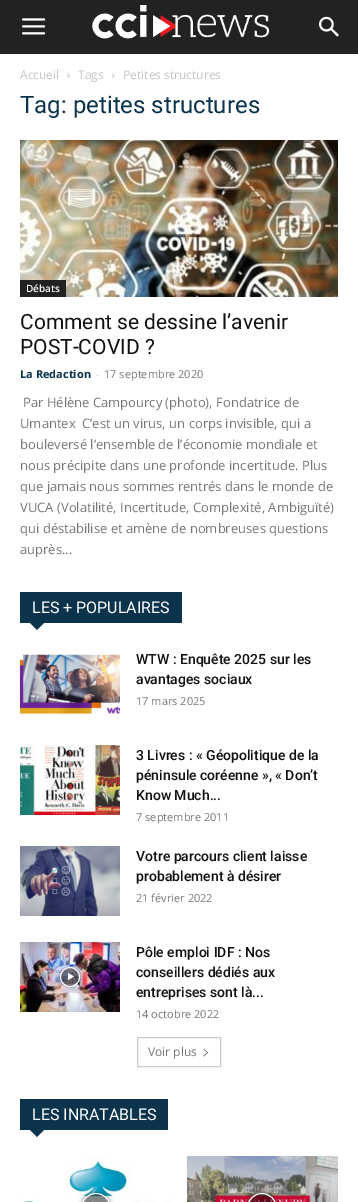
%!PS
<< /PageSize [358 1202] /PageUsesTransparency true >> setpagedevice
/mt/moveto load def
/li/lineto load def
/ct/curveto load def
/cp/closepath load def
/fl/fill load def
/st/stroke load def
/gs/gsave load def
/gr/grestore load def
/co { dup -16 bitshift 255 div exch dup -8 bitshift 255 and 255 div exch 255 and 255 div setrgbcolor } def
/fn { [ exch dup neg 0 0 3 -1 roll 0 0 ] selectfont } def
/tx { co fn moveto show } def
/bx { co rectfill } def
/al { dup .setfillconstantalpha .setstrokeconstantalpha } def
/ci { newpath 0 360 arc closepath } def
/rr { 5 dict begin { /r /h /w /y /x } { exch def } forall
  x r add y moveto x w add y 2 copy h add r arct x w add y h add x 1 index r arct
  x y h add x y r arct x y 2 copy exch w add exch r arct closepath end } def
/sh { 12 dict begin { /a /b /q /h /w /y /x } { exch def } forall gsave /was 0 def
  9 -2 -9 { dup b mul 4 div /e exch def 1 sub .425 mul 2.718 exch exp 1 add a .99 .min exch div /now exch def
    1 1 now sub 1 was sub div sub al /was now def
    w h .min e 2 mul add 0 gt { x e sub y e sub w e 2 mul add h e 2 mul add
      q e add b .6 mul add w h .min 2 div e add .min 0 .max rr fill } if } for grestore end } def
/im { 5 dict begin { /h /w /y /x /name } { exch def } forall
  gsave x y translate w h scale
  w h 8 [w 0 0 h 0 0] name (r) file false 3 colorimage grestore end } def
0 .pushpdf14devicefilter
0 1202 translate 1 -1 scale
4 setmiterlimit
0 0 358 1202 16#FFFFFF bx
0 0 358 54 16#222222 bx
(media/1.raw) 22 18 24 17 im
(media/2.raw) 92 5 177 34 im
(media/3.raw) 319 16 20 21 im
(media/4.raw) 67 73 3 5 im
(media/4.raw) 112 73 3 5 im
(media/5.raw) 20 140 318 157 im
20 280 46 17 16#222222 bx
20 592 162 31 16#0B334C bx
30 623 mt 44 623 li 37 630 li cp fl
(media/6.raw) 20 654 100 60 im
(media/7.raw) 20 745 100 70 im
(media/8.raw) 20 846 100 70 im
(media/9.raw) 20 942 100 70 im
gs
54 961 mt 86 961 li 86 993 li 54 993 li cp 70 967 mt 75.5 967 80 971.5 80 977 ct 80 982.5 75.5 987 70 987 ct 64.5 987 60 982.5 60 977 ct 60 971.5 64.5 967 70 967 ct cp eoclip newpath
16#000000 co
60 967 20 20 10 1.5 .4 sh
gr
0.48 al
16#000000 co
70 977 9.5 ci fl
1 al
16#FFFFFF co
70 977 9.5 ci st
68 973 mt 68 980 li 74 976.5 li cp fl
16#C9C9C9 co
137.5 1037.5 83 29 rectstroke
(media/10.raw) 203 1048 6 9 im
20 1099 148 31 16#0B334C bx
30 1130 mt 44 1130 li 37 1137 li cp fl
(media/11.raw) 20 1156 152 46 im
gs
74 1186 mt 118 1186 li 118 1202 li 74 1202 li cp 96 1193 mt 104.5 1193 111 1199.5 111 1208 ct 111 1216.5 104.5 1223 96 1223 ct 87.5 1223 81 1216.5 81 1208 ct 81 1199.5 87.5 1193 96 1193 ct cp eoclip newpath
16#000000 co
81 1193 30 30 15 2 .4 sh
gr
0.48 al
16#000000 co
81.5 1193.5 29 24 14.5 rr fl
1 al
16#FFFFFF co
81.5 1193.5 29 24 14.5 rr st
92.5 1201.5 mt 92.5 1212 li 101.5 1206.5 li cp fl
(media/12.raw) 187 1156 151 46 im
gs
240 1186 mt 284 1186 li 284 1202 li 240 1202 li cp 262 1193 mt 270.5 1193 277 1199.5 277 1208 ct 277 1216.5 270.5 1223 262 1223 ct 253.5 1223 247 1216.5 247 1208 ct 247 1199.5 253.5 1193 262 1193 ct cp eoclip newpath
16#000000 co
247 1193 30 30 15 2 .4 sh
gr
0.48 al
16#000000 co
247.5 1193.5 29 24 14.5 rr fl
1 al
16#FFFFFF co
247.5 1193.5 29 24 14.5 rr st
258.5 1201.5 mt 258.5 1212 li 267.5 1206.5 li cp fl
(Accueil) 20 79 /OpenSans-Regular 12 16#C3C3C3 tx
(Tags) 78 79 /OpenSans-Regular 12 16#C3C3C3 tx
(Petites structures) 123 79 /OpenSans-Regular 12 16#C3C3C3 tx
(Tag: petites structures) 20 113 /Roboto-Regular 24 16#0B334C tx
(Débats) 26 292 /OpenSans-SemiBold 10 16#FFFFFF tx
(Comment se dessine l’avenir) 20 329 /Roboto-Regular 21 16#111111 tx
(POST-COVID ?) 20 354 /Roboto-Regular 21 16#111111 tx
(La Redaction) 20 378 /OpenSans-Bold 11 16#0B334C tx
(-) 96 378 /OpenSans-Regular 11 16#CCCCCC tx
(17 septembre 2020) 104 378 /OpenSans-Regular 11 16#767676 tx
(Par Hélène Campourcy \(photo\), Fondatrice de) 23 407 /OpenSans-Regular 13 16#767676 tx
(Umantex) 20 428 /OpenSans-Regular 13 16#767676 tx
(C’est un virus, un corps invisible, qui a) 82 428 /OpenSans-Regular 13 16#767676 tx
(bouleversé l’ensemble de l’économie mondiale et) 20 449 /OpenSans-Regular 13 16#767676 tx
(nous précipite dans une profonde incertitude. Plus) 20 470 /OpenSans-Regular 13 16#767676 tx
(que jamais nous sommes rentrés dans le monde de) 20 491 /OpenSans-Regular 13 16#767676 tx
(VUCA \(Volatilité, Incertitude, Complexité, Ambiguïté\)) 20 512 /OpenSans-Regular 13 16#767676 tx
(qui déstabilise et amène de nombreuses questions) 20 533 /OpenSans-Regular 13 16#767676 tx
(auprès...) 20 554 /OpenSans-Regular 13 16#767676 tx
(LES + POPULAIRES) 32 613 /Roboto-Regular 16 16#FFFFFF tx
(WTW : Enquête 2025 sur les) 136 664 /Roboto-Medium 14 16#111111 tx
(avantages sociaux) 136 684 /Roboto-Medium 14 16#111111 tx
(17 mars 2025) 136 705 /OpenSans-Regular 11 16#767676 tx
(3 Livres : « Géopolitique de la) 136 760 /Roboto-Medium 14 16#111111 tx
(péninsule coréenne », « Don’t) 136 780 /Roboto-Medium 14 16#111111 tx
(Know Much...) 136 800 /Roboto-Medium 14 16#111111 tx
(7 septembre 2011) 136 821 /OpenSans-Regular 11 16#767676 tx
(Votre parcours client laisse) 136 861 /Roboto-Medium 14 16#111111 tx
(probablement à désirer) 136 881 /Roboto-Medium 14 16#111111 tx
(21 février 2022) 136 902 /OpenSans-Regular 11 16#767676 tx
(Pôle emploi IDF : Nos) 136 957 /Roboto-Medium 14 16#111111 tx
(conseillers dédiés aux) 136 977 /Roboto-Medium 14 16#111111 tx
(entreprises sont là...) 136 997 /Roboto-Medium 14 16#111111 tx
(14 octobre 2022) 136 1018 /OpenSans-Regular 11 16#767676 tx
(Voir plus) 148 1056 /OpenSans-Regular 12 16#767676 tx
(LES INRATABLES) 32 1120 /Roboto-Regular 16 16#FFFFFF tx
.poppdf14devicefilter showpage
